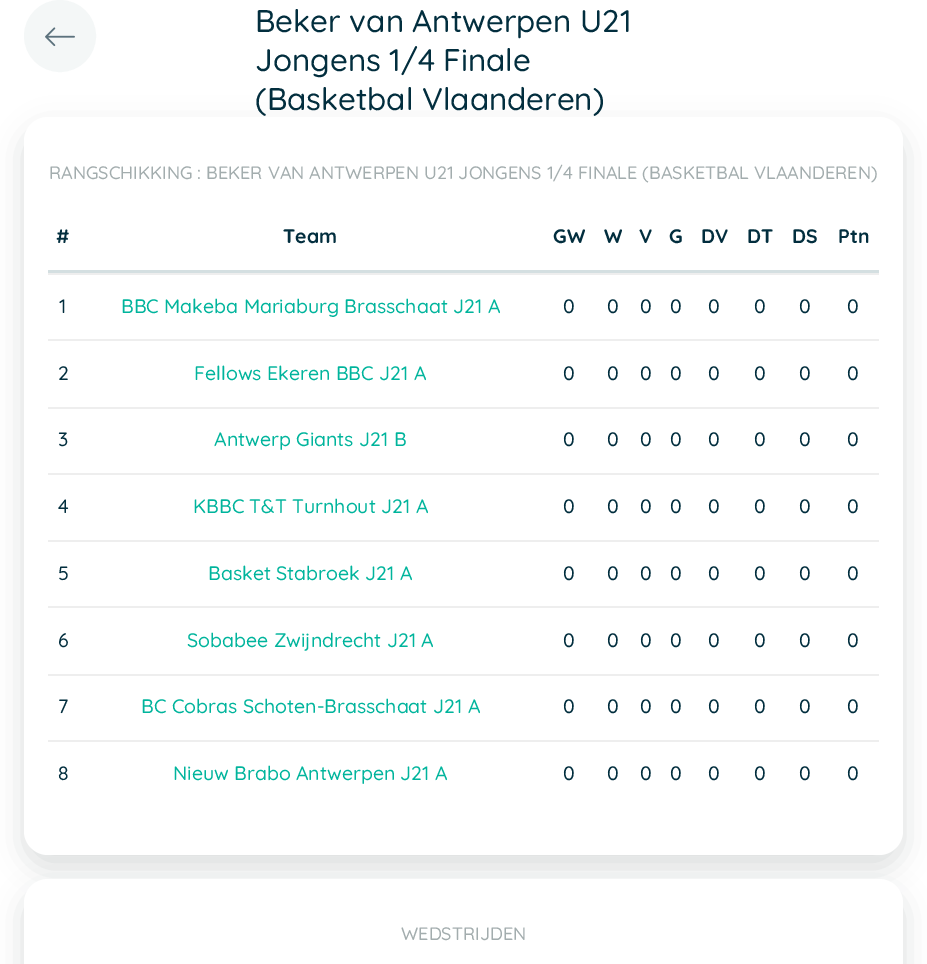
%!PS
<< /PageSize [927 964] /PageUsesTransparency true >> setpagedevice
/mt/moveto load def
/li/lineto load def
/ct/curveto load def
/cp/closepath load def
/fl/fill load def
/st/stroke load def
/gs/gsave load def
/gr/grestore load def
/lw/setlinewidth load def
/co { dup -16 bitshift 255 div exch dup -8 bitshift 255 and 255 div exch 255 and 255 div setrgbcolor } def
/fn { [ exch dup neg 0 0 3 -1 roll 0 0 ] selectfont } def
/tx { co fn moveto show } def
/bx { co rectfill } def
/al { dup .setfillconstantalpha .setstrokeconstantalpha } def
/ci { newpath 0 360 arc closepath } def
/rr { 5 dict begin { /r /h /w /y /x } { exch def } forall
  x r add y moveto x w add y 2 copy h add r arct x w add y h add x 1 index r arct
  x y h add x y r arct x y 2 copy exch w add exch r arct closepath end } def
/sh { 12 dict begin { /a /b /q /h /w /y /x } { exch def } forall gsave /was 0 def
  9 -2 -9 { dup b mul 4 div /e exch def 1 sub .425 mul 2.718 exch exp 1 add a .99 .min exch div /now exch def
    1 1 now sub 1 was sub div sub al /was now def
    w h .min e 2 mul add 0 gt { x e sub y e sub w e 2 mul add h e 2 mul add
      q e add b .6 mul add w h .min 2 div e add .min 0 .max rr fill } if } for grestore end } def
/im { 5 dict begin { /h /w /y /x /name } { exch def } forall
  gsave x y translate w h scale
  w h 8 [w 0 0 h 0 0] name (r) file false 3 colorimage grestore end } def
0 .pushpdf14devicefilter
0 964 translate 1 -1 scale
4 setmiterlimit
0 0 927 964 16#FFFFFF bx
16#F4F7F7 co
60 36 35 ci gs fl gr
2 lw
st
(media/1.raw) 45 27 30 20 im
16#475C5D co
24 129 879 738 24 15 .2 sh
16#FFFFFF co
24 117 879 738 24 rr fl
48 270 831 3 16#D4DFE1 bx
48 273 831 2 16#EEEEEE bx
48 339 831 2 16#EEEEEE bx
48 407 831 2 16#EEEEEE bx
48 473 831 2 16#EEEEEE bx
48 540 831 2 16#EEEEEE bx
48 606 831 2 16#EEEEEE bx
48 674 831 2 16#EEEEEE bx
48 740 831 2 16#EEEEEE bx
16#475C5D co
24 891 879 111 24 15 .2 sh
16#FFFFFF co
48 879 mt 879 879 li 892.5 879 903 889.5 903 903 ct 903 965 li 24 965 li 24 903 li 24 889.5 34.5 879 48 879 ct cp fl
(Beker van Antwerpen U21) 255 32 /Quicksand-Medium 31.25 16#022E3E tx
(Jongens 1/4 Finale) 255 71 /Quicksand-Medium 31.25 16#022E3E tx
(\(Basketbal Vlaanderen\)) 255 110 /Quicksand-Medium 31.25 16#022E3E tx
(RANGSCHIKKING : BEKER VAN ANTWERPEN U21 JONGENS 1/4 FINALE \(BASKETBAL VLAANDEREN\)) 49 179 /Quicksand-Medium 18 16#A3ADAE tx
(#) 56 243 /Quicksand-Bold 19.5 16#022E3E tx
(Team) 283 243 /Quicksand-Bold 19.5 16#022E3E tx
(GW) 553 243 /Quicksand-Bold 19.5 16#022E3E tx
(W) 604 243 /Quicksand-Bold 19.5 16#022E3E tx
(V) 639 243 /Quicksand-Bold 19.5 16#022E3E tx
(G) 669 243 /Quicksand-Bold 19.5 16#022E3E tx
(DV) 701 243 /Quicksand-Bold 19.5 16#022E3E tx
(DT) 747 243 /Quicksand-Bold 19.5 16#022E3E tx
(DS) 792 243 /Quicksand-Bold 19.5 16#022E3E tx
(Ptn) 838 243 /Quicksand-Bold 19.5 16#022E3E tx
(1) 59 313 /Quicksand-Medium 19.5 16#022E3E tx
(BBC Makeba Mariaburg Brasschaat J21 A) 121 313 /Quicksand-Medium 19.5 16#00B49C tx
(0) 563 313 /Quicksand-Medium 19.5 16#022E3E tx
(0) 607 313 /Quicksand-Medium 19.5 16#022E3E tx
(0) 640 313 /Quicksand-Medium 19.5 16#022E3E tx
(0) 670 313 /Quicksand-Medium 19.5 16#022E3E tx
(0) 708 313 /Quicksand-Medium 19.5 16#022E3E tx
(0) 754 313 /Quicksand-Medium 19.5 16#022E3E tx
(0) 799 313 /Quicksand-Medium 19.5 16#022E3E tx
(0) 847 313 /Quicksand-Medium 19.5 16#022E3E tx
(2) 58 380 /Quicksand-Medium 19.5 16#022E3E tx
(Fellows Ekeren BBC J21 A) 194 380 /Quicksand-Medium 19.5 16#00B49C tx
(0) 563 380 /Quicksand-Medium 19.5 16#022E3E tx
(0) 607 380 /Quicksand-Medium 19.5 16#022E3E tx
(0) 640 380 /Quicksand-Medium 19.5 16#022E3E tx
(0) 670 380 /Quicksand-Medium 19.5 16#022E3E tx
(0) 708 380 /Quicksand-Medium 19.5 16#022E3E tx
(0) 754 380 /Quicksand-Medium 19.5 16#022E3E tx
(0) 799 380 /Quicksand-Medium 19.5 16#022E3E tx
(0) 847 380 /Quicksand-Medium 19.5 16#022E3E tx
(3) 58 446 /Quicksand-Medium 19.5 16#022E3E tx
(Antwerp Giants J21 B) 214 446 /Quicksand-Medium 19.5 16#00B49C tx
(0) 563 446 /Quicksand-Medium 19.5 16#022E3E tx
(0) 607 446 /Quicksand-Medium 19.5 16#022E3E tx
(0) 640 446 /Quicksand-Medium 19.5 16#022E3E tx
(0) 670 446 /Quicksand-Medium 19.5 16#022E3E tx
(0) 708 446 /Quicksand-Medium 19.5 16#022E3E tx
(0) 754 446 /Quicksand-Medium 19.5 16#022E3E tx
(0) 799 446 /Quicksand-Medium 19.5 16#022E3E tx
(0) 847 446 /Quicksand-Medium 19.5 16#022E3E tx
(4) 58 513 /Quicksand-Medium 19.5 16#022E3E tx
(KBBC T&T Turnhout J21 A) 193 513 /Quicksand-Medium 19.5 16#00B49C tx
(0) 563 513 /Quicksand-Medium 19.5 16#022E3E tx
(0) 607 513 /Quicksand-Medium 19.5 16#022E3E tx
(0) 640 513 /Quicksand-Medium 19.5 16#022E3E tx
(0) 670 513 /Quicksand-Medium 19.5 16#022E3E tx
(0) 708 513 /Quicksand-Medium 19.5 16#022E3E tx
(0) 754 513 /Quicksand-Medium 19.5 16#022E3E tx
(0) 799 513 /Quicksand-Medium 19.5 16#022E3E tx
(0) 847 513 /Quicksand-Medium 19.5 16#022E3E tx
(5) 58 580 /Quicksand-Medium 19.5 16#022E3E tx
(Basket Stabroek J21 A) 208 580 /Quicksand-Medium 19.5 16#00B49C tx
(0) 563 580 /Quicksand-Medium 19.5 16#022E3E tx
(0) 607 580 /Quicksand-Medium 19.5 16#022E3E tx
(0) 640 580 /Quicksand-Medium 19.5 16#022E3E tx
(0) 670 580 /Quicksand-Medium 19.5 16#022E3E tx
(0) 708 580 /Quicksand-Medium 19.5 16#022E3E tx
(0) 754 580 /Quicksand-Medium 19.5 16#022E3E tx
(0) 799 580 /Quicksand-Medium 19.5 16#022E3E tx
(0) 847 580 /Quicksand-Medium 19.5 16#022E3E tx
(6) 58 647 /Quicksand-Medium 19.5 16#022E3E tx
(Sobabee Zwijndrecht J21 A) 187 647 /Quicksand-Medium 19.5 16#00B49C tx
(0) 563 647 /Quicksand-Medium 19.5 16#022E3E tx
(0) 607 647 /Quicksand-Medium 19.5 16#022E3E tx
(0) 640 647 /Quicksand-Medium 19.5 16#022E3E tx
(0) 670 647 /Quicksand-Medium 19.5 16#022E3E tx
(0) 708 647 /Quicksand-Medium 19.5 16#022E3E tx
(0) 754 647 /Quicksand-Medium 19.5 16#022E3E tx
(0) 799 647 /Quicksand-Medium 19.5 16#022E3E tx
(0) 847 647 /Quicksand-Medium 19.5 16#022E3E tx
(7) 58 713 /Quicksand-Medium 19.5 16#022E3E tx
(BC Cobras Schoten-Brasschaat J21 A) 141 713 /Quicksand-Medium 19.5 16#00B49C tx
(0) 563 713 /Quicksand-Medium 19.5 16#022E3E tx
(0) 607 713 /Quicksand-Medium 19.5 16#022E3E tx
(0) 640 713 /Quicksand-Medium 19.5 16#022E3E tx
(0) 670 713 /Quicksand-Medium 19.5 16#022E3E tx
(0) 708 713 /Quicksand-Medium 19.5 16#022E3E tx
(0) 754 713 /Quicksand-Medium 19.5 16#022E3E tx
(0) 799 713 /Quicksand-Medium 19.5 16#022E3E tx
(0) 847 713 /Quicksand-Medium 19.5 16#022E3E tx
(8) 58 780 /Quicksand-Medium 19.5 16#022E3E tx
(Nieuw Brabo Antwerpen J21 A) 173 780 /Quicksand-Medium 19.5 16#00B49C tx
(0) 563 780 /Quicksand-Medium 19.5 16#022E3E tx
(0) 607 780 /Quicksand-Medium 19.5 16#022E3E tx
(0) 640 780 /Quicksand-Medium 19.5 16#022E3E tx
(0) 670 780 /Quicksand-Medium 19.5 16#022E3E tx
(0) 708 780 /Quicksand-Medium 19.5 16#022E3E tx
(0) 754 780 /Quicksand-Medium 19.5 16#022E3E tx
(0) 799 780 /Quicksand-Medium 19.5 16#022E3E tx
(0) 847 780 /Quicksand-Medium 19.5 16#022E3E tx
(WEDSTRIJDEN) 401 940 /Quicksand-Medium 18 16#A3ADAE tx
.poppdf14devicefilter showpage
